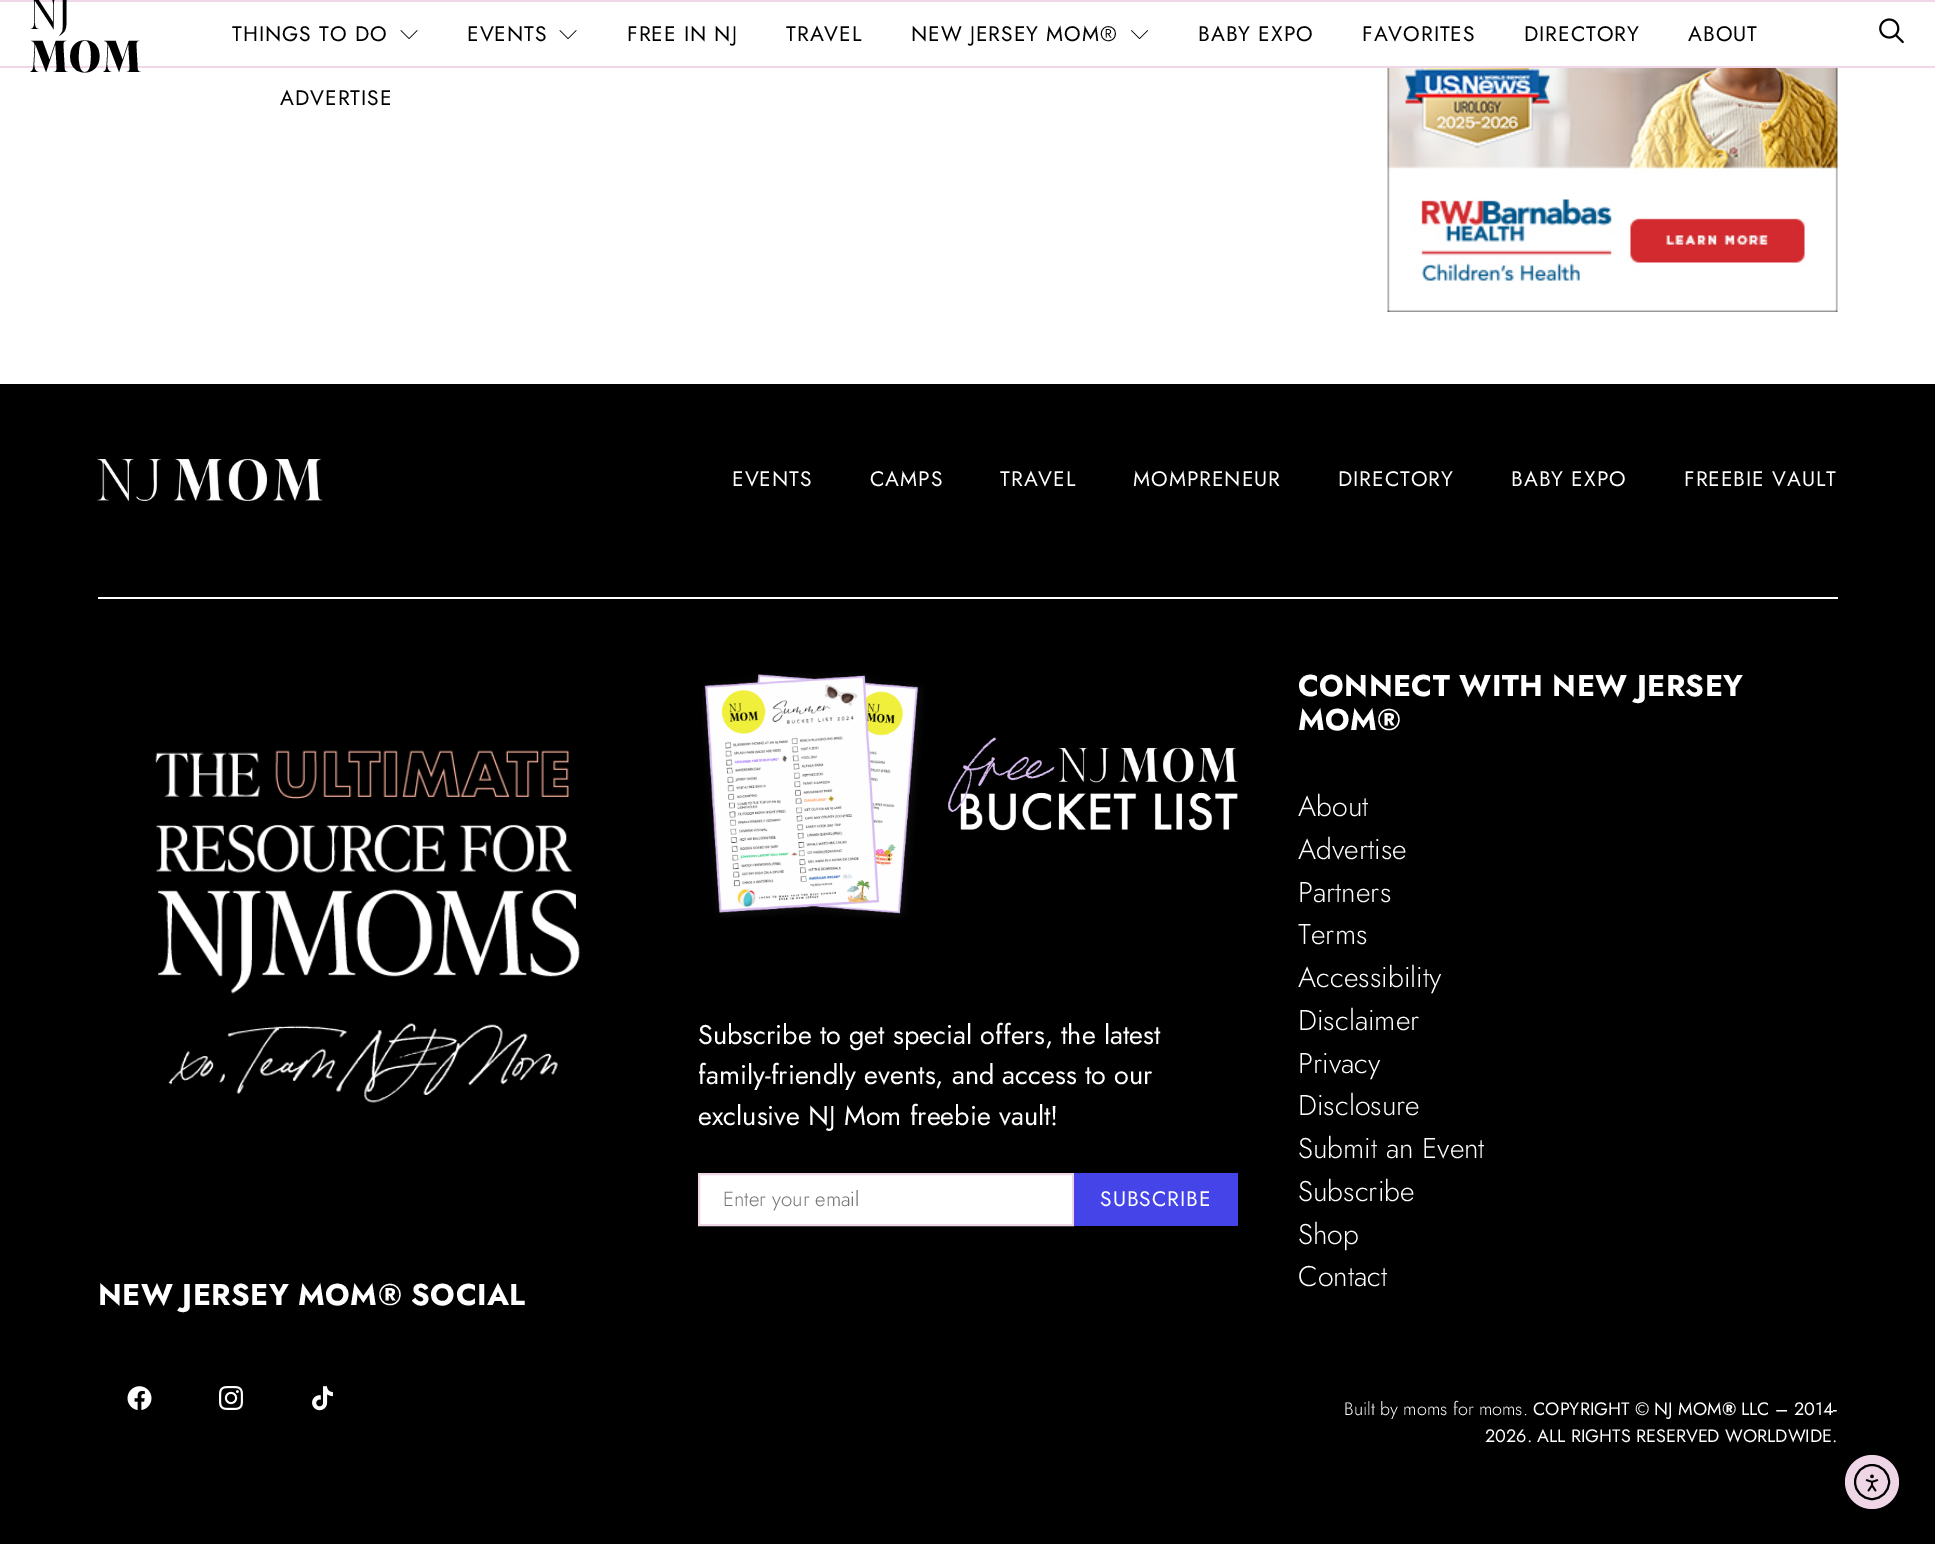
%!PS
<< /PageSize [1935 1544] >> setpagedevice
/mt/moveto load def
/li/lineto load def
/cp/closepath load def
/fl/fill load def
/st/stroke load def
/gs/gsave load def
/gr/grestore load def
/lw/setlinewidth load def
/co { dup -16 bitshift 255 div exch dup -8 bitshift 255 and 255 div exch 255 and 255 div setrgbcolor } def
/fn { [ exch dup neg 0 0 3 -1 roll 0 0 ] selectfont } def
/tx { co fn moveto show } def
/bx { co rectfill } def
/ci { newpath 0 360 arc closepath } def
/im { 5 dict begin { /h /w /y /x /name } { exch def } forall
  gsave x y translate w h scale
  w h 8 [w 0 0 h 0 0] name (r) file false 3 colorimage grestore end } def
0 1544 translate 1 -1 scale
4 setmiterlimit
0 0 1935 1544 16#FFFFFF bx
0 0 1935 2 16#F0D7E7 bx
0 66 1935 2 16#F0D7E7 bx
(media/1.raw) 400 30 18 9 im
(media/1.raw) 559 30 18 9 im
(media/2.raw) 1131 30 18 9 im
(media/3.raw) 1879 18 25 26 im
(media/4.raw) 1387 68 451 244 im
0 384 1935 1160 16#000000 bx
(media/5.raw) 97 459 226 42 im
98 597 1740 2 16#FFFFFF bx
(media/6.raw) 702 673 536 245 im
699 1174 mt 1073 1174 li 1073 1225 li 699 1225 li cp gs fl gr
16#F0D7E7 co
2 lw
st
1074 1173 164 53 16#4444E8 bx
(media/7.raw) 155 750 425 353 im
(media/8.raw) 127 1386 25 24 im
(media/9.raw) 219 1386 24 24 im
(media/10.raw) 312 1386 21 25 im
16#EFD6E6 co
1872 1482 27 ci fl
16#000000 co
1872 1482 17 ci st
(media/11.raw) 1865 1474 14 18 im
/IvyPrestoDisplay-Light 43 fn
30 29 mt 1.5 0 (NJ) ashow
/IvyPrestoDisplay-Bold 43 fn
30 72 mt 1.5 0 (MOM) ashow
/Jost-Regular 21 fn
232 41 mt 1 0 (THINGS TO DO) ashow
467 41 mt 1 0 (EVENTS) ashow
627 41 mt 1 0 (FREE IN NJ) ashow
786 41 mt 1 0 (TRAVEL) ashow
911 41 mt 1 0 (NEW JERSEY MOM®) ashow
1198 41 mt 1 0 (BABY EXPO) ashow
1362 41 mt 1 0 (FAVORITES) ashow
1524 41 mt 1 0 (DIRECTORY) ashow
1688 41 mt 1 0 (ABOUT) ashow
280 105 mt 1 0 (ADVERTISE) ashow
16#FFFFFF co
732 486 mt 1 0 (EVENTS) ashow
870 486 mt 1 0 (CAMPS) ashow
1000 486 mt 1 0 (TRAVEL) ashow
1133 486 mt 1 0 (MOMPRENEUR) ashow
1338 486 mt 1 0 (DIRECTORY) ashow
1511 486 mt 1 0 (BABY EXPO) ashow
1684 486 mt 1 0 (FREEBIE VAULT) ashow
(Subscribe to get special offers, the latest) 698 1044 /Jost-Regular 27 16#FFFFFF tx
(family-friendly events, and access to our) 698 1084 /Jost-Regular 27 16#FFFFFF tx
(exclusive NJ Mom freebie vault!) 698 1125 /Jost-Regular 27 16#FFFFFF tx
(Enter your email) 723 1206 /Jost-Light 20.5 16#757575 tx
/Jost-Regular 21 fn
16#FFFFFF co
1100 1206 mt 1 0 (SUBSCRIBE) ashow
/Jost-Bold 30 fn
1298 696 mt .4 0 (CONNECT WITH NEW JERSEY) ashow
1298 730 mt .4 0 (MOM®) ashow
(About) 1298 816 /Jost-Light 28.5 16#FFFFFF tx
(Advertise) 1298 859 /Jost-Light 28.5 16#FFFFFF tx
(Partners) 1298 902 /Jost-Light 28.5 16#FFFFFF tx
(Terms) 1298 944 /Jost-Light 28.5 16#FFFFFF tx
(Accessibility) 1298 987 /Jost-Light 28.5 16#FFFFFF tx
(Disclaimer) 1298 1030 /Jost-Light 28.5 16#FFFFFF tx
(Privacy) 1298 1073 /Jost-Light 28.5 16#FFFFFF tx
(Disclosure) 1298 1115 /Jost-Light 28.5 16#FFFFFF tx
(Submit an Event) 1298 1158 /Jost-Light 28.5 16#FFFFFF tx
(Subscribe) 1298 1201 /Jost-Light 28.5 16#FFFFFF tx
(Shop) 1298 1244 /Jost-Light 28.5 16#FFFFFF tx
(Contact) 1298 1286 /Jost-Light 28.5 16#FFFFFF tx
(Built by moms for moms.) 1344 1415 /Jost-Light 18 16#FFFFFF tx
(COPYRIGHT © NJ MOM) 1533 1415 /Jost-Regular 18 16#FFFFFF tx
(®) 1722 1415 /Jost-Bold 18 16#FFFFFF tx
(LLC – 2014-) 1741 1415 /Jost-Regular 18 16#FFFFFF tx
(2026. ALL RIGHTS RESERVED WORLDWIDE.) 1485 1442 /Jost-Regular 18 16#FFFFFF tx
/Jost-Bold 30 fn
98 1305 mt .4 0 (NEW JERSEY MOM® SOCIAL) ashow
showpage
